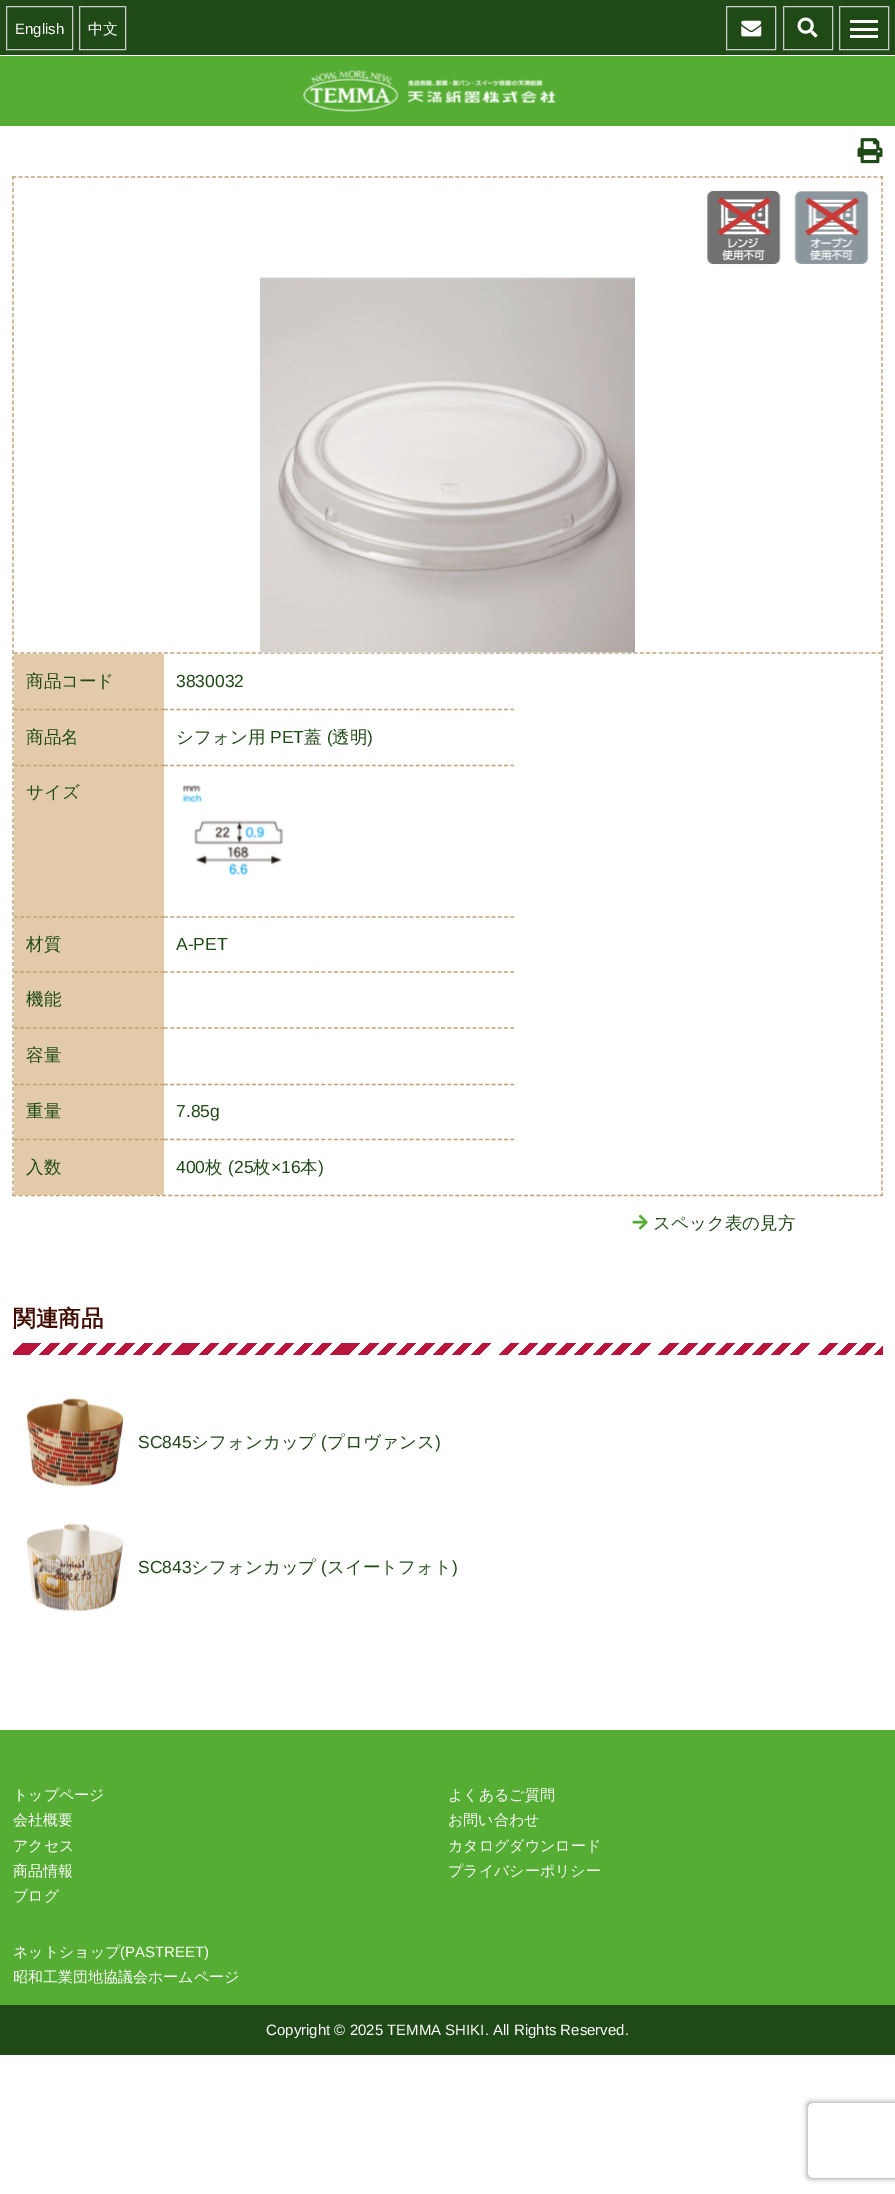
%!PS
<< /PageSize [895 2194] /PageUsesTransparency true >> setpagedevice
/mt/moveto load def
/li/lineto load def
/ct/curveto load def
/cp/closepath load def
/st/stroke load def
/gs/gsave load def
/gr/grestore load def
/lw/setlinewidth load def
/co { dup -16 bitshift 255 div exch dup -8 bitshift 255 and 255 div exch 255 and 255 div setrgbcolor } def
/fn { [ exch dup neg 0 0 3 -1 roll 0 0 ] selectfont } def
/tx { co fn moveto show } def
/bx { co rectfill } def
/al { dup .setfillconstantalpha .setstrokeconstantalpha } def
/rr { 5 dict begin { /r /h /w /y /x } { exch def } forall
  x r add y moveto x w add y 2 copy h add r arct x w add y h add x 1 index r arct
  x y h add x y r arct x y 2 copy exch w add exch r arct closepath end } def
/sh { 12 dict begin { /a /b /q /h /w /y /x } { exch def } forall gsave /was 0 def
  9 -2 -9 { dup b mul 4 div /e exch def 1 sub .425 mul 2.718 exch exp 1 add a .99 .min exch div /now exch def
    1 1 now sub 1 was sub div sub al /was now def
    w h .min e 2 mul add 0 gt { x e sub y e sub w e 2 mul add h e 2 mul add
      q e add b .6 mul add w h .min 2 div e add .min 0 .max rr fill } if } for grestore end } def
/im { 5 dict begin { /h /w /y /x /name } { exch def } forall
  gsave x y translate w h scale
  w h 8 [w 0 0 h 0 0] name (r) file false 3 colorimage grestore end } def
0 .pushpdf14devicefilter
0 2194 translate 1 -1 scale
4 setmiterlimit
0 0 895 2194 16#FFFFFF bx
0 56 895 70 16#56AD34 bx
0 0 895 55 16#1F4A17 bx
16#CCCCCC co
6.5 6.5 66 43 rectstroke
79.5 6.5 46 43 rectstroke
726.5 6.5 49 43 rectstroke
(media/1.raw) 741 20 21 17 im
783.5 6.5 49 43 rectstroke
(media/2.raw) 797 17 21 21 im
839.5 6.5 49 43 rectstroke
850 20 28 3 16#FFFFFF bx
850 28 28 3 16#FFFFFF bx
850 35 28 3 16#FFFFFF bx
(media/3.raw) 303 69 253 43 im
(media/4.raw) 857 138 26 26 im
16#C0A176 co
1.2 lw
[3.75 2.49] 0 setdash
12.5 177 mt 882.5 177 li st
882 176 mt 882 1196 li st
12.5 1195.5 mt 882.5 1195.5 li st
13 176 mt 13 1196 li st
(media/5.raw) 707 190 74 75 im
(media/6.raw) 794 191 75 73 im
[3.75 2.51] 0 setdash
14 653 mt 881 653 li st
(media/7.raw) 260 277 375 376 im
14 654 150 541 16#E3CBA9 bx
16#C0A176 co
[3.75 2.61] 0 setdash
14 709.5 mt 164 709.5 li st
[3.75 2.55] 0 setdash
164 709.5 mt 514 709.5 li st
[3.75 2.61] 0 setdash
14 765.5 mt 164 765.5 li st
[3.75 2.55] 0 setdash
164 765.5 mt 514 765.5 li st
(media/8.raw) 182 784 102 92 im
[3.75 2.61] 0 setdash
14 917 mt 164 917 li st
[3.75 2.55] 0 setdash
164 917 mt 514 917 li st
164 972 mt 514 972 li st
[3.75 2.61] 0 setdash
14 972 mt 164 972 li st
[3.75 2.55] 0 setdash
164 1028 mt 514 1028 li st
[3.75 2.61] 0 setdash
14 1028 mt 164 1028 li st
14 1084.5 mt 164 1084.5 li st
[3.75 2.55] 0 setdash
164 1084.5 mt 514 1084.5 li st
[3.75 2.61] 0 setdash
14 1139.5 mt 164 1139.5 li st
[3.75 2.55] 0 setdash
164 1139.5 mt 514 1139.5 li st
(media/9.raw) 632 1214 16 16 im
gs 13 1343 mt 883 1343 li 883 1355 li 13 1355 li cp clip newpath
<< /ShadingType 2 /ColorSpace /DeviceRGB /Coords [679 1559 210 1090] /Extend [true true] /Function << /FunctionType 3 /Domain [0 1] /Functions [<< /FunctionType 2 /Domain [0 1] /C0 [.722 .078 .235] /C1 [.722 .078 .235] /N 1 >> << /FunctionType 2 /Domain [0 1] /C0 [1 1 1] /C1 [1 1 1] /N 1 >> << /FunctionType 2 /Domain [0 1] /C0 [.722 .078 .235] /C1 [.722 .078 .235] /N 1 >> << /FunctionType 2 /Domain [0 1] /C0 [1 1 1] /C1 [1 1 1] /N 1 >> << /FunctionType 2 /Domain [0 1] /C0 [.722 .078 .235] /C1 [.722 .078 .235] /N 1 >> << /FunctionType 2 /Domain [0 1] /C0 [1 1 1] /C1 [1 1 1] /N 1 >> << /FunctionType 2 /Domain [0 1] /C0 [.722 .078 .235] /C1 [.722 .078 .235] /N 1 >> << /FunctionType 2 /Domain [0 1] /C0 [1 1 1] /C1 [1 1 1] /N 1 >> << /FunctionType 2 /Domain [0 1] /C0 [1 1 1] /C1 [1 1 1] /N 1 >> << /FunctionType 2 /Domain [0 1] /C0 [.722 .078 .235] /C1 [.722 .078 .235] /N 1 >> << /FunctionType 2 /Domain [0 1] /C0 [1 1 1] /C1 [1 1 1] /N 1 >> << /FunctionType 2 /Domain [0 1] /C0 [.722 .078 .235] /C1 [.722 .078 .235] /N 1 >> << /FunctionType 2 /Domain [0 1] /C0 [1 1 1] /C1 [1 1 1] /N 1 >> << /FunctionType 2 /Domain [0 1] /C0 [.722 .078 .235] /C1 [.722 .078 .235] /N 1 >> << /FunctionType 2 /Domain [0 1] /C0 [1 1 1] /C1 [1 1 1] /N 1 >> << /FunctionType 2 /Domain [0 1] /C0 [.722 .078 .235] /C1 [.722 .078 .235] /N 1 >> << /FunctionType 2 /Domain [0 1] /C0 [1 1 1] /C1 [1 1 1] /N 1 >> << /FunctionType 2 /Domain [0 1] /C0 [.722 .078 .235] /C1 [.722 .078 .235] /N 1 >> << /FunctionType 2 /Domain [0 1] /C0 [1 1 1] /C1 [1 1 1] /N 1 >> << /FunctionType 2 /Domain [0 1] /C0 [.722 .078 .235] /C1 [.722 .078 .235] /N 1 >> << /FunctionType 2 /Domain [0 1] /C0 [1 1 1] /C1 [1 1 1] /N 1 >> << /FunctionType 2 /Domain [0 1] /C0 [.722 .078 .235] /C1 [.722 .078 .235] /N 1 >> << /FunctionType 2 /Domain [0 1] /C0 [1 1 1] /C1 [1 1 1] /N 1 >> << /FunctionType 2 /Domain [0 1] /C0 [.722 .078 .235] /C1 [.722 .078 .235] /N 1 >> << /FunctionType 2 /Domain [0 1] /C0 [1 1 1] /C1 [1 1 1] /N 1 >> << /FunctionType 2 /Domain [0 1] /C0 [1 1 1] /C1 [1 1 1] /N 1 >> << /FunctionType 2 /Domain [0 1] /C0 [.722 .078 .235] /C1 [.722 .078 .235] /N 1 >> << /FunctionType 2 /Domain [0 1] /C0 [1 1 1] /C1 [1 1 1] /N 1 >> << /FunctionType 2 /Domain [0 1] /C0 [.722 .078 .235] /C1 [.722 .078 .235] /N 1 >> << /FunctionType 2 /Domain [0 1] /C0 [1 1 1] /C1 [1 1 1] /N 1 >> << /FunctionType 2 /Domain [0 1] /C0 [.722 .078 .235] /C1 [.722 .078 .235] /N 1 >> << /FunctionType 2 /Domain [0 1] /C0 [1 1 1] /C1 [1 1 1] /N 1 >> << /FunctionType 2 /Domain [0 1] /C0 [.722 .078 .235] /C1 [.722 .078 .235] /N 1 >> << /FunctionType 2 /Domain [0 1] /C0 [1 1 1] /C1 [1 1 1] /N 1 >> << /FunctionType 2 /Domain [0 1] /C0 [.722 .078 .235] /C1 [.722 .078 .235] /N 1 >> << /FunctionType 2 /Domain [0 1] /C0 [1 1 1] /C1 [1 1 1] /N 1 >> << /FunctionType 2 /Domain [0 1] /C0 [.722 .078 .235] /C1 [.722 .078 .235] /N 1 >> << /FunctionType 2 /Domain [0 1] /C0 [1 1 1] /C1 [1 1 1] /N 1 >> << /FunctionType 2 /Domain [0 1] /C0 [.722 .078 .235] /C1 [.722 .078 .235] /N 1 >> << /FunctionType 2 /Domain [0 1] /C0 [1 1 1] /C1 [1 1 1] /N 1 >> << /FunctionType 2 /Domain [0 1] /C0 [.722 .078 .235] /C1 [.722 .078 .235] /N 1 >> << /FunctionType 2 /Domain [0 1] /C0 [1 1 1] /C1 [1 1 1] /N 1 >> << /FunctionType 2 /Domain [0 1] /C0 [1 1 1] /C1 [1 1 1] /N 1 >> << /FunctionType 2 /Domain [0 1] /C0 [.722 .078 .235] /C1 [.722 .078 .235] /N 1 >> << /FunctionType 2 /Domain [0 1] /C0 [1 1 1] /C1 [1 1 1] /N 1 >> << /FunctionType 2 /Domain [0 1] /C0 [.722 .078 .235] /C1 [.722 .078 .235] /N 1 >> << /FunctionType 2 /Domain [0 1] /C0 [1 1 1] /C1 [1 1 1] /N 1 >> << /FunctionType 2 /Domain [0 1] /C0 [.722 .078 .235] /C1 [.722 .078 .235] /N 1 >> << /FunctionType 2 /Domain [0 1] /C0 [1 1 1] /C1 [1 1 1] /N 1 >> << /FunctionType 2 /Domain [0 1] /C0 [.722 .078 .235] /C1 [.722 .078 .235] /N 1 >> << /FunctionType 2 /Domain [0 1] /C0 [1 1 1] /C1 [1 1 1] /N 1 >> << /FunctionType 2 /Domain [0 1] /C0 [.722 .078 .235] /C1 [.722 .078 .235] /N 1 >> << /FunctionType 2 /Domain [0 1] /C0 [1 1 1] /C1 [1 1 1] /N 1 >> << /FunctionType 2 /Domain [0 1] /C0 [.722 .078 .235] /C1 [.722 .078 .235] /N 1 >> << /FunctionType 2 /Domain [0 1] /C0 [1 1 1] /C1 [1 1 1] /N 1 >> << /FunctionType 2 /Domain [0 1] /C0 [.722 .078 .235] /C1 [.722 .078 .235] /N 1 >> << /FunctionType 2 /Domain [0 1] /C0 [1 1 1] /C1 [1 1 1] /N 1 >> << /FunctionType 2 /Domain [0 1] /C0 [.722 .078 .235] /C1 [.722 .078 .235] /N 1 >> << /FunctionType 2 /Domain [0 1] /C0 [.722 .078 .235] /C1 [.722 .078 .235] /N 1 >> << /FunctionType 2 /Domain [0 1] /C0 [1 1 1] /C1 [1 1 1] /N 1 >> << /FunctionType 2 /Domain [0 1] /C0 [.722 .078 .235] /C1 [.722 .078 .235] /N 1 >> << /FunctionType 2 /Domain [0 1] /C0 [1 1 1] /C1 [1 1 1] /N 1 >> << /FunctionType 2 /Domain [0 1] /C0 [.722 .078 .235] /C1 [.722 .078 .235] /N 1 >> << /FunctionType 2 /Domain [0 1] /C0 [1 1 1] /C1 [1 1 1] /N 1 >> << /FunctionType 2 /Domain [0 1] /C0 [.722 .078 .235] /C1 [.722 .078 .235] /N 1 >> << /FunctionType 2 /Domain [0 1] /C0 [1 1 1] /C1 [1 1 1] /N 1 >> << /FunctionType 2 /Domain [0 1] /C0 [.722 .078 .235] /C1 [.722 .078 .235] /N 1 >> << /FunctionType 2 /Domain [0 1] /C0 [1 1 1] /C1 [1 1 1] /N 1 >> << /FunctionType 2 /Domain [0 1] /C0 [.722 .078 .235] /C1 [.722 .078 .235] /N 1 >> << /FunctionType 2 /Domain [0 1] /C0 [1 1 1] /C1 [1 1 1] /N 1 >> << /FunctionType 2 /Domain [0 1] /C0 [.722 .078 .235] /C1 [.722 .078 .235] /N 1 >> << /FunctionType 2 /Domain [0 1] /C0 [1 1 1] /C1 [1 1 1] /N 1 >> << /FunctionType 2 /Domain [0 1] /C0 [.722 .078 .235] /C1 [.722 .078 .235] /N 1 >> << /FunctionType 2 /Domain [0 1] /C0 [1 1 1] /C1 [1 1 1] /N 1 >> << /FunctionType 2 /Domain [0 1] /C0 [.722 .078 .235] /C1 [.722 .078 .235] /N 1 >> << /FunctionType 2 /Domain [0 1] /C0 [.722 .078 .235] /C1 [.722 .078 .235] /N 1 >> << /FunctionType 2 /Domain [0 1] /C0 [1 1 1] /C1 [1 1 1] /N 1 >> << /FunctionType 2 /Domain [0 1] /C0 [.722 .078 .235] /C1 [.722 .078 .235] /N 1 >> << /FunctionType 2 /Domain [0 1] /C0 [1 1 1] /C1 [1 1 1] /N 1 >> << /FunctionType 2 /Domain [0 1] /C0 [.722 .078 .235] /C1 [.722 .078 .235] /N 1 >> << /FunctionType 2 /Domain [0 1] /C0 [1 1 1] /C1 [1 1 1] /N 1 >> << /FunctionType 2 /Domain [0 1] /C0 [.722 .078 .235] /C1 [.722 .078 .235] /N 1 >> << /FunctionType 2 /Domain [0 1] /C0 [1 1 1] /C1 [1 1 1] /N 1 >> << /FunctionType 2 /Domain [0 1] /C0 [.722 .078 .235] /C1 [.722 .078 .235] /N 1 >> << /FunctionType 2 /Domain [0 1] /C0 [1 1 1] /C1 [1 1 1] /N 1 >> << /FunctionType 2 /Domain [0 1] /C0 [.722 .078 .235] /C1 [.722 .078 .235] /N 1 >> << /FunctionType 2 /Domain [0 1] /C0 [1 1 1] /C1 [1 1 1] /N 1 >> << /FunctionType 2 /Domain [0 1] /C0 [.722 .078 .235] /C1 [.722 .078 .235] /N 1 >> << /FunctionType 2 /Domain [0 1] /C0 [1 1 1] /C1 [1 1 1] /N 1 >> << /FunctionType 2 /Domain [0 1] /C0 [.722 .078 .235] /C1 [.722 .078 .235] /N 1 >> << /FunctionType 2 /Domain [0 1] /C0 [1 1 1] /C1 [1 1 1] /N 1 >> << /FunctionType 2 /Domain [0 1] /C0 [.722 .078 .235] /C1 [.722 .078 .235] /N 1 >> << /FunctionType 2 /Domain [0 1] /C0 [.722 .078 .235] /C1 [.722 .078 .235] /N 1 >> << /FunctionType 2 /Domain [0 1] /C0 [1 1 1] /C1 [1 1 1] /N 1 >> << /FunctionType 2 /Domain [0 1] /C0 [.722 .078 .235] /C1 [.722 .078 .235] /N 1 >> << /FunctionType 2 /Domain [0 1] /C0 [1 1 1] /C1 [1 1 1] /N 1 >> << /FunctionType 2 /Domain [0 1] /C0 [.722 .078 .235] /C1 [.722 .078 .235] /N 1 >> << /FunctionType 2 /Domain [0 1] /C0 [1 1 1] /C1 [1 1 1] /N 1 >> << /FunctionType 2 /Domain [0 1] /C0 [.722 .078 .235] /C1 [.722 .078 .235] /N 1 >> << /FunctionType 2 /Domain [0 1] /C0 [1 1 1] /C1 [1 1 1] /N 1 >>] /Bounds [.01 .02 .03 .04 .05 .06 .07 .08 .09 .1 .11 .12 .13 .14 .15 .16 .17 .18 .19 .2 .21 .22 .23 .24 .25 .26 .27 .28 .29 .3 .31 .32 .33 .34 .35 .36 .37 .38 .39 .4 .41 .42 .43 .44 .45 .46 .47 .48 .49 .5 .51 .52 .53 .54 .55 .56 .57 .58 .59 .6 .61 .62 .63 .64 .65 .66 .67 .68 .69 .7 .71 .72 .73 .74 .75 .76 .77 .78 .79 .8 .81 .82 .83 .84 .85 .86 .87 .88 .89 .9 .91 .92 .93 .94 .95 .96 .97 .98 .99] /Encode [0 1 0 1 0 1 0 1 0 1 0 1 0 1 0 1 0 1 0 1 0 1 0 1 0 1 0 1 0 1 0 1 0 1 0 1 0 1 0 1 0 1 0 1 0 1 0 1 0 1 0 1 0 1 0 1 0 1 0 1 0 1 0 1 0 1 0 1 0 1 0 1 0 1 0 1 0 1 0 1 0 1 0 1 0 1 0 1 0 1 0 1 0 1 0 1 0 1 0 1 0 1 0 1 0 1 0 1 0 1 0 1 0 1 0 1 0 1 0 1 0 1 0 1 0 1 0 1 0 1 0 1 0 1 0 1 0 1 0 1 0 1 0 1 0 1 0 1 0 1 0 1 0 1 0 1 0 1 0 1 0 1 0 1 0 1 0 1 0 1 0 1 0 1 0 1 0 1 0 1 0 1 0 1 0 1 0 1 0 1 0 1 0 1 0 1 0 1 0 1] >> >> shfill gr
(media/10.raw) 26 1398 98 89 im
(media/11.raw) 26 1523 98 89 im
0 1730 895 275 16#56AD34 bx
0 2005 895 50 16#1F4A17 bx
gs
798 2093 mt 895 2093 li 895 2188 li 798 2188 li cp 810.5 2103 mt 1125.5 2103 li 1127 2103 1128 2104 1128 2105.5 ct 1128 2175.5 li 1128 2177 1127 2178 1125.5 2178 ct 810.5 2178 li 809 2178 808 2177 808 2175.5 ct 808 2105.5 li 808 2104 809 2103 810.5 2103 ct cp eoclip newpath
16#808080 co
808 2103 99 75 2.5 3 1 sh
gr
(English) 15 34 /LiberationSans-Regular 15 16#FFFFFF tx
(中文) 88 34 /WenQuanYiZenHei-Medium 15 16#FFFFFF tx
(商品コード) 26 687 /WenQuanYiZenHei-Medium 17.5 16#1F4A17 tx
(3830032) 176 687 /LiberationSans-Regular 17.5 16#1F4A17 tx
(商品名) 26 743 /WenQuanYiZenHei-Medium 17.5 16#1F4A17 tx
(シフォン用) 176 743 /WenQuanYiZenHei-Medium 17.5 16#1F4A17 tx
(PET) 270 743 /LiberationSans-Regular 17.5 16#1F4A17 tx
(蓋) 304 743 /WenQuanYiZenHei-Medium 17.5 16#1F4A17 tx
(\() 327 743 /LiberationSans-Regular 17.5 16#1F4A17 tx
(透明) 332 743 /WenQuanYiZenHei-Medium 17.5 16#1F4A17 tx
(\)) 367 743 /LiberationSans-Regular 17.5 16#1F4A17 tx
(サイズ) 26 798 /WenQuanYiZenHei-Medium 17.5 16#1F4A17 tx
(材質) 26 950 /WenQuanYiZenHei-Medium 17.5 16#1F4A17 tx
(A-PET) 176 950 /LiberationSans-Regular 17.5 16#1F4A17 tx
(機能) 26 1005 /WenQuanYiZenHei-Medium 17.5 16#1F4A17 tx
(容量) 26 1061 /WenQuanYiZenHei-Medium 17.5 16#1F4A17 tx
(重量) 26 1117 /WenQuanYiZenHei-Medium 17.5 16#1F4A17 tx
(7.85g) 176 1117 /LiberationSans-Regular 17.5 16#1F4A17 tx
(入数) 26 1173 /WenQuanYiZenHei-Medium 17.5 16#1F4A17 tx
(400) 176 1173 /LiberationSans-Regular 17.5 16#1F4A17 tx
(枚) 205 1173 /WenQuanYiZenHei-Medium 17.5 16#1F4A17 tx
(\(25) 228 1173 /LiberationSans-Regular 17.5 16#1F4A17 tx
(枚) 253 1173 /WenQuanYiZenHei-Medium 17.5 16#1F4A17 tx
(×16) 271 1173 /LiberationSans-Regular 17.5 16#1F4A17 tx
(本) 300 1173 /WenQuanYiZenHei-Medium 17.5 16#1F4A17 tx
(\)) 318 1173 /LiberationSans-Regular 17.5 16#1F4A17 tx
(スペック表の見方) 653 1229 /WenQuanYiZenHei-Medium 17.5 16#1F4A17 tx
(関連商品) 13 1326 /WenQuanYiZenHei-Bold 22.5 16#400D00 tx
(SC845) 138 1448 /LiberationSans-Regular 17.5 16#1F4A17 tx
(シフォンカップ) 191 1448 /WenQuanYiZenHei-Medium 17.5 16#1F4A17 tx
(\() 321 1448 /LiberationSans-Regular 17.5 16#1F4A17 tx
(プロヴァンス) 327 1448 /WenQuanYiZenHei-Medium 17.5 16#1F4A17 tx
(\)) 435 1448 /LiberationSans-Regular 17.5 16#1F4A17 tx
(SC843) 138 1573 /LiberationSans-Regular 17.5 16#1F4A17 tx
(シフォンカップ) 191 1573 /WenQuanYiZenHei-Medium 17.5 16#1F4A17 tx
(\() 321 1573 /LiberationSans-Regular 17.5 16#1F4A17 tx
(スイートフォト) 327 1573 /WenQuanYiZenHei-Medium 17.5 16#1F4A17 tx
(\)) 452 1573 /LiberationSans-Regular 17.5 16#1F4A17 tx
(トップページ) 13 1800 /WenQuanYiZenHei-Medium 15 16#FFFFFF tx
(会社概要) 13 1825 /WenQuanYiZenHei-Medium 15 16#FFFFFF tx
(アクセス) 13 1851 /WenQuanYiZenHei-Medium 15 16#FFFFFF tx
(商品情報) 13 1876 /WenQuanYiZenHei-Medium 15 16#FFFFFF tx
(ブログ) 13 1901 /WenQuanYiZenHei-Medium 15 16#FFFFFF tx
(よくあるご質問) 448 1800 /WenQuanYiZenHei-Medium 15 16#FFFFFF tx
(お問い合わせ) 448 1825 /WenQuanYiZenHei-Medium 15 16#FFFFFF tx
(カタログダウンロード) 448 1851 /WenQuanYiZenHei-Medium 15 16#FFFFFF tx
(プライバシーポリシー) 448 1876 /WenQuanYiZenHei-Medium 15 16#FFFFFF tx
(ネットショップ) 13 1957 /WenQuanYiZenHei-Medium 15 16#FFFFFF tx
(\(PASTREET\)) 120 1957 /LiberationSans-Regular 15 16#FFFFFF tx
(昭和工業団地協議会ホームページ) 13 1982 /WenQuanYiZenHei-Medium 15 16#FFFFFF tx
(Copyright © 2025 TEMMA SHIKI. All Rights Reserved.) 266 2035 /LiberationSans-Regular 15 16#FFFFFF tx
.poppdf14devicefilter showpage
